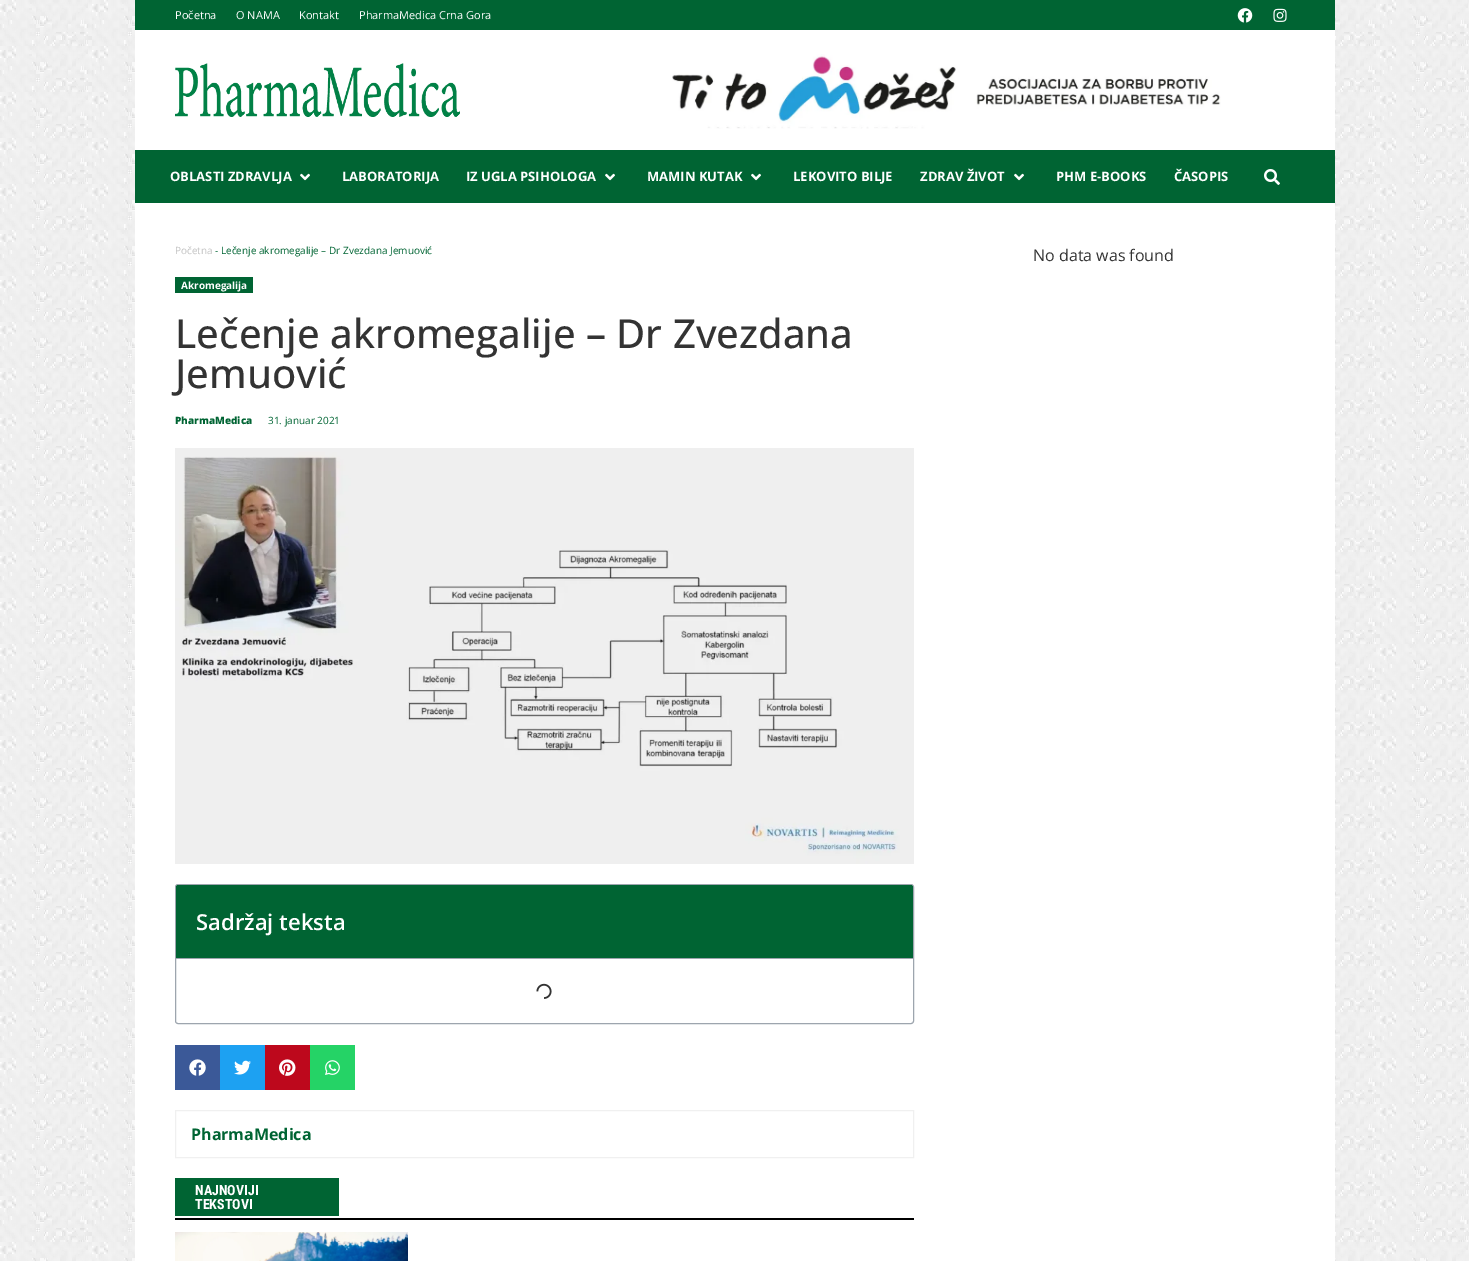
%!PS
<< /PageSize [1469 1261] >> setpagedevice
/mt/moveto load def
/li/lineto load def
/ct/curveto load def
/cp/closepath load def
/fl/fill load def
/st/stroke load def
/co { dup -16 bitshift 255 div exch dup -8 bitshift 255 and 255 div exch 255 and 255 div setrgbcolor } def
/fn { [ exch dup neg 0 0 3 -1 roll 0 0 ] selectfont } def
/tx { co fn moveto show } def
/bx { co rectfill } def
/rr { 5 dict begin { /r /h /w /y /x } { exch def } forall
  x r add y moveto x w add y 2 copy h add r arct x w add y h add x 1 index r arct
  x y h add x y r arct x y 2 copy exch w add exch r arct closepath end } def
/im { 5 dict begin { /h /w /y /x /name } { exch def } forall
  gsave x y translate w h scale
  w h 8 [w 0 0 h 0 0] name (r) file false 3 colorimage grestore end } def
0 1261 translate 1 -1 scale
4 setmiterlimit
0 0 1469 1261 16#FFFFFF bx
(media/1.raw) 0 0 1469 1261 im
135 0 1200 30 16#006433 bx
(media/2.raw) 1237 8 16 15 im
(media/3.raw) 1273 8 14 14 im
135 30 1200 120 16#FFFFFF bx
(media/4.raw) 175 63 285 54 im
(media/5.raw) 672 54 549 75 im
135 150 1200 53 16#006433 bx
(media/6.raw) 300 173 10 8 im
(media/6.raw) 605 173 10 8 im
(media/6.raw) 751 173 10 8 im
(media/6.raw) 1014 173 10 8 im
(media/7.raw) 1264 169 16 16 im
135 203 1200 1058 16#FFFFFF bx
175 277 78 16 16#006433 bx
(media/8.raw) 175 448 739 416 im
16#9DA5AE co
175.5 884.5 738 139 2.5 rr st
16#006433 co
178 885 mt 911 885 li 912 885 913 886 913 887 ct 913 959 li 176 959 li 176 887 li 176 886 177 885 178 885 ct cp fl
176 958 737 1 16#9DA5AE bx
(media/9.raw) 536 983 16 16 im
175 1045 45 45 16#3B5998 bx
(media/10.raw) 189 1059 17 17 im
220 1045 45 45 16#1DA1F2 bx
(media/11.raw) 234 1060 17 15 im
265 1045 45 45 16#BD081C bx
(media/12.raw) 279 1059 17 17 im
310 1045 45 45 16#25D366 bx
(media/13.raw) 325 1060 15 15 im
16#F0F0F0 co
175.5 1110.5 738 47 rectstroke
175 1178 164 38 16#006433 bx
175 1218 739 2 16#000000 bx
(media/14.raw) 175 1232 233 29 im
(Početna) 175 19 /OpenSans-Regular 11 16#FFFFFF tx
(O NAMA) 236 19 /OpenSans-Regular 11 16#FFFFFF tx
(Kontakt) 299 19 /OpenSans-Regular 11 16#FFFFFF tx
(PharmaMedica Crna Gora) 359 19 /OpenSans-Regular 11 16#FFFFFF tx
(OBLASTI ZDRAVLJA) 170 181 /OpenSans-Bold 13 16#FFFFFF tx
(LABORATORIJA) 342 181 /OpenSans-Bold 13 16#FFFFFF tx
(IZ UGLA PSIHOLOGA) 466 181 /OpenSans-Bold 13 16#FFFFFF tx
(MAMIN KUTAK) 647 181 /OpenSans-Bold 13 16#FFFFFF tx
(LEKOVITO BILJE) 793 181 /OpenSans-Bold 13 16#FFFFFF tx
(ZDRAV ŽIVOT) 920 181 /OpenSans-Bold 13 16#FFFFFF tx
(PHM E-BOOKS) 1056 181 /OpenSans-Bold 13 16#FFFFFF tx
(ČASOPIS) 1174 181 /OpenSans-Bold 13 16#FFFFFF tx
(Početna) 175 254 /OpenSans-Regular 10 16#C3C3C3 tx
(- Lečenje akromegalije – Dr Zvezdana Jemuović) 215 254 /OpenSans-Regular 10 16#006433 tx
(Akromegalija) 181 289 /OpenSans-Bold 10 16#FFFFFF tx
(Lečenje akromegalije – Dr Zvezdana) 175 348 /OpenSans-Medium 40 16#333333 tx
(Jemuović) 175 388 /OpenSans-Medium 40 16#333333 tx
(PharmaMedica) 175 424 /OpenSans-ExtraBold 10 16#006433 tx
(31. januar 2021) 268 424 /OpenSans-Regular 10 16#006433 tx
(Sadržaj teksta) 196 930 /OpenSans-SemiBold 22 16#FFFFFF tx
(PharmaMedica) 191 1140 /OpenSans-Bold 16 16#006433 tx
(NAJNOVIJI) 195 1195 /RobotoCondensed-Bold 14 16#FFFFFF tx
(TEKSTOVI) 195 1209 /RobotoCondensed-Bold 14 16#FFFFFF tx
(No data was found) 1033 261 /OpenSans-Regular 16 16#333333 tx
showpage
